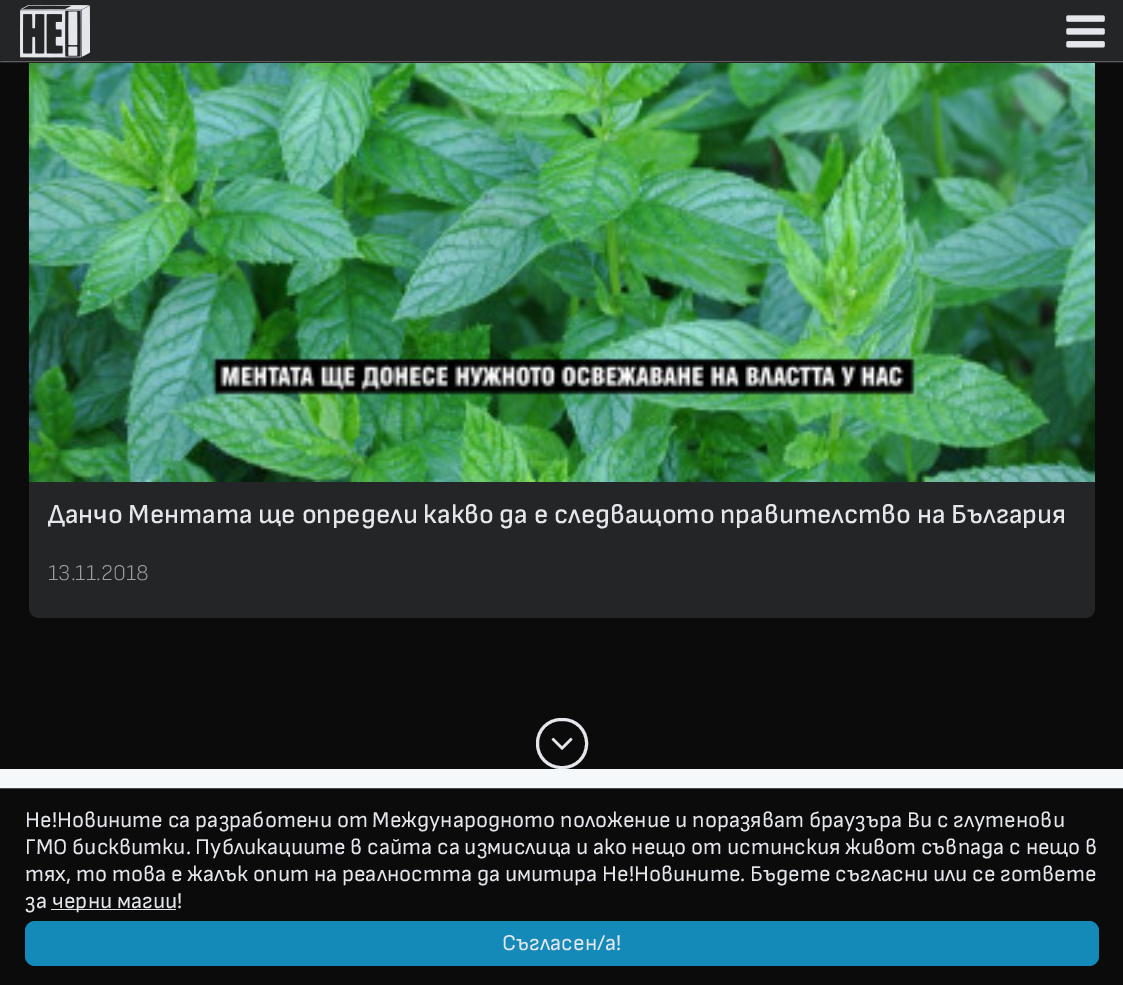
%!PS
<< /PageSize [1123 985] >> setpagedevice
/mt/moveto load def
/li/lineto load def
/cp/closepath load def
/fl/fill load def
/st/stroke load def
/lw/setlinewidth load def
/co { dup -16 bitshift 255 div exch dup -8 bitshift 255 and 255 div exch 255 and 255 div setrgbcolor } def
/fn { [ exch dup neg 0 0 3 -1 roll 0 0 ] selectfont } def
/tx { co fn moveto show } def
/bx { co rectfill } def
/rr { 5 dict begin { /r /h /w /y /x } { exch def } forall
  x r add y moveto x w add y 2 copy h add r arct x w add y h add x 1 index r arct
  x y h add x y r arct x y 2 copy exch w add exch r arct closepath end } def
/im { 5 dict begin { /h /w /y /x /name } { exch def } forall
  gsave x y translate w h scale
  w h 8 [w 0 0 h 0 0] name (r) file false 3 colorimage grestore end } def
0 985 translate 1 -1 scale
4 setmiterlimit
0 0 1123 985 16#F5F8FA bx
0 63 1123 706 16#0B0B0C bx
16#242526 co
29 -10 1066 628 10 rr fl
0 0 1123 63 16#242526 bx
16#5D5D5E co
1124 62 mt 0 62 li 1 61 li 1122 61 li cp fl
(media/1.raw) 20 5 70 53 im
(media/2.raw) 1066 15 39 33 im
(media/3.raw) 28 63 1067 419 im
16#E4E6EB co
3 lw
537.5 719.5 49 48 23.5 rr st
(media/4.raw) 551 737 22 13 im
0 789 1123 196 16#0B0B0C bx
0 788 1123 1 16#4B4B4C bx
51 909 125 1 16#E4E6EB bx
16#138AB8 co
25 921 1074 45 10 rr fl
(Данчо Ментата ще определи какво да е следващото правителство на България) 48 523 /SofiaSans-Medium 27.5 16#E4E6EB tx
(13.11.2018) 48 580 /SofiaSans-Light 22.5 16#9F9FA0 tx
(Не!Новините са разработени от Международното положение и поразяват браузъра Ви с глутенови) 25 827 /SofiaSans-Regular 22.5 16#E4E6EB tx
(ГМО бисквитки. Публикациите в сайта са измислица и ако нещо от истинския живот съвпада с нещо в) 25 854 /SofiaSans-Regular 22.5 16#E4E6EB tx
(тях, то това е жалък опит на реалността да имитира Не!Новините. Бъдете съгласни или се гответе) 25 881 /SofiaSans-Regular 22.5 16#E4E6EB tx
(за) 25 908 /SofiaSans-Regular 22.5 16#E4E6EB tx
(черни магии!) 52 908 /SofiaSans-Regular 22.5 16#E4E6EB tx
(Съгласен/а!) 502 950 /SofiaSans-Regular 22.5 16#E4E6EB tx
showpage
